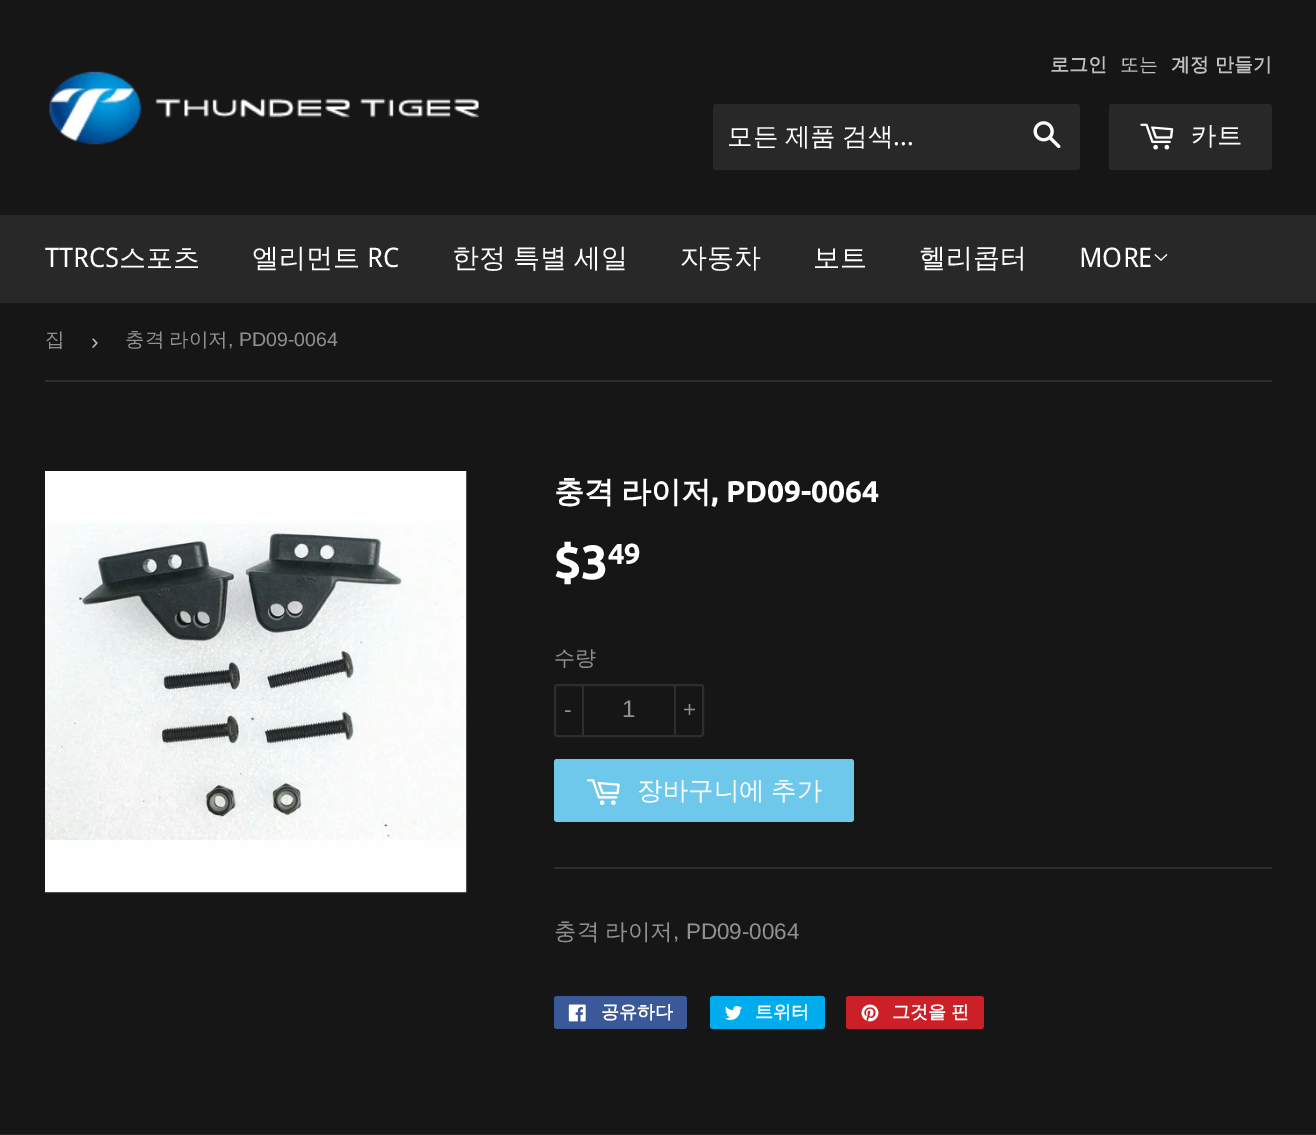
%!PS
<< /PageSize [1316 1135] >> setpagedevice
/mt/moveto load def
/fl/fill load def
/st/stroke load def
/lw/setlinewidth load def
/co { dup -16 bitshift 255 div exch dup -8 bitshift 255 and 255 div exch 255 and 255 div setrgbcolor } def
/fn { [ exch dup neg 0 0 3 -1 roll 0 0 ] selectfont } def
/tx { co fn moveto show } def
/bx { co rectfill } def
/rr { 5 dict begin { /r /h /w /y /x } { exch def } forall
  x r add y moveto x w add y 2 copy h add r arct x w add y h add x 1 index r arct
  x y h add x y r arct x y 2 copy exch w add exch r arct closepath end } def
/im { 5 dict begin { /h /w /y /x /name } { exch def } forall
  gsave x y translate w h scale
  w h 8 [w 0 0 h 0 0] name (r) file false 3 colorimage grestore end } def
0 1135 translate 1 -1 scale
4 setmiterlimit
0 0 1316 1135 16#161616 bx
(media/1.raw) 49 71 430 74 im
16#282828 co
713 104 367 66 3 rr fl
(media/2.raw) 1033 121 28 28 im
1109 104 163 66 3 rr fl
(media/3.raw) 1140 123 34 27 im
0 215 1316 88 16#282828 bx
(media/4.raw) 1154 254 14 7 im
45 380 1227 2 16#2E2E2E bx
(media/5.raw) 45 471 422 422 im
2 lw
555 685 148 51 2 rr st
582 684 2 53 16#2E2E2E bx
674 684 2 53 16#2E2E2E bx
16#6DC8EB co
554 759 300 63 3 rr fl
(media/6.raw) 586 779 34 26 im
554 867 718 2 16#2E2E2E bx
16#3B5998 co
554 996 133 33 3 rr fl
(media/7.raw) 568 1004 18 18 im
16#00ACED co
710 996 115 33 3 rr fl
(media/8.raw) 725 1005 17 15 im
16#CB2027 co
846 996 138 33 3 rr fl
(media/9.raw) 861 1004 18 18 im
0 1134 1316 1 16#282828 bx
(로그인) 1050 71 /WenQuanYiZenHei-Bold 19 16#BFBFBF tx
(또는) 1120 71 /WenQuanYiZenHei-Medium 19 16#BFBFBF tx
(계정 만들기) 1171 71 /WenQuanYiZenHei-Bold 19 16#BFBFBF tx
/WenQuanYiZenHei-Medium 25.5 fn
16#FFFFFF co
727 145 mt -1 0 32 (모든 제품 검색) widthshow
(...) 893 145 /DroidSans-Regular 25.5 16#FFFFFF tx
(카트) 1191 144 /WenQuanYiZenHei-Medium 25.5 16#FFFFFF tx
(TTRCS) 45 267 /DroidSans-Regular 27 16#FFFFFF tx
(스포츠) 119 267 /WenQuanYiZenHei-Medium 27 16#FFFFFF tx
(엘리먼트) 252 267 /WenQuanYiZenHei-Medium 27 16#FFFFFF tx
(RC) 367 267 /DroidSans-Regular 27 16#FFFFFF tx
/WenQuanYiZenHei-Medium 27 fn
452 267 mt -1 0 32 (한정 특별 세일) widthshow
(자동차) 680 267 /WenQuanYiZenHei-Medium 27 16#FFFFFF tx
(보트) 813 267 /WenQuanYiZenHei-Medium 27 16#FFFFFF tx
(헬리콥터) 919 267 /WenQuanYiZenHei-Medium 27 16#FFFFFF tx
(MORE) 1079 267 /DroidSans-Regular 27 16#FFFFFF tx
(집) 45 346 /WenQuanYiZenHei-Medium 19.5 16#919191 tx
(›) 91 349 /LiberationSans-Regular 22.5 16#BFBFBF tx
(충격) 125 346 /WenQuanYiZenHei-Medium 19.5 16#919191 tx
(라이저) 169 346 /WenQuanYiZenHei-Medium 19.5 16#919191 tx
(, PD09-0064) 228 346 /LiberationSans-Regular 19.5 16#919191 tx
(충격) 554 502 /WenQuanYiZenHei-Bold 30 16#FFFFFF tx
(라이저) 621 502 /WenQuanYiZenHei-Bold 30 16#FFFFFF tx
(, PD09-0064) 711 502 /Ubuntu-Bold 30 16#FFFFFF tx
($3) 554 579 /Ubuntu-Bold 48 16#FFFFFF tx
(49) 608 564 /Ubuntu-Bold 29 16#FFFFFF tx
(수량) 554 665 /WenQuanYiZenHei-Medium 21 16#919191 tx
(-) 564 717 /LiberationSans-Regular 22.5 16#919191 tx
(1) 622 717 /LiberationSans-Regular 24 16#919191 tx
(+) 683 717 /LiberationSans-Regular 22.5 16#919191 tx
/WenQuanYiZenHei-Medium 25.5 fn
16#FFFFFF co
637 799 mt -1 0 32 (장바구니에 추가) widthshow
(충격) 554 939 /WenQuanYiZenHei-Medium 22.5 16#919191 tx
(라이저) 605 939 /WenQuanYiZenHei-Medium 22.5 16#919191 tx
(, PD09-0064) 673 939 /LiberationSans-Regular 22.5 16#919191 tx
(공유하다) 601 1018 /WenQuanYiZenHei-Bold 18 16#FFFFFF tx
(트위터) 755 1018 /WenQuanYiZenHei-Bold 18 16#FFFFFF tx
(그것을 핀) 892 1018 /WenQuanYiZenHei-Bold 18 16#FFFFFF tx
showpage
